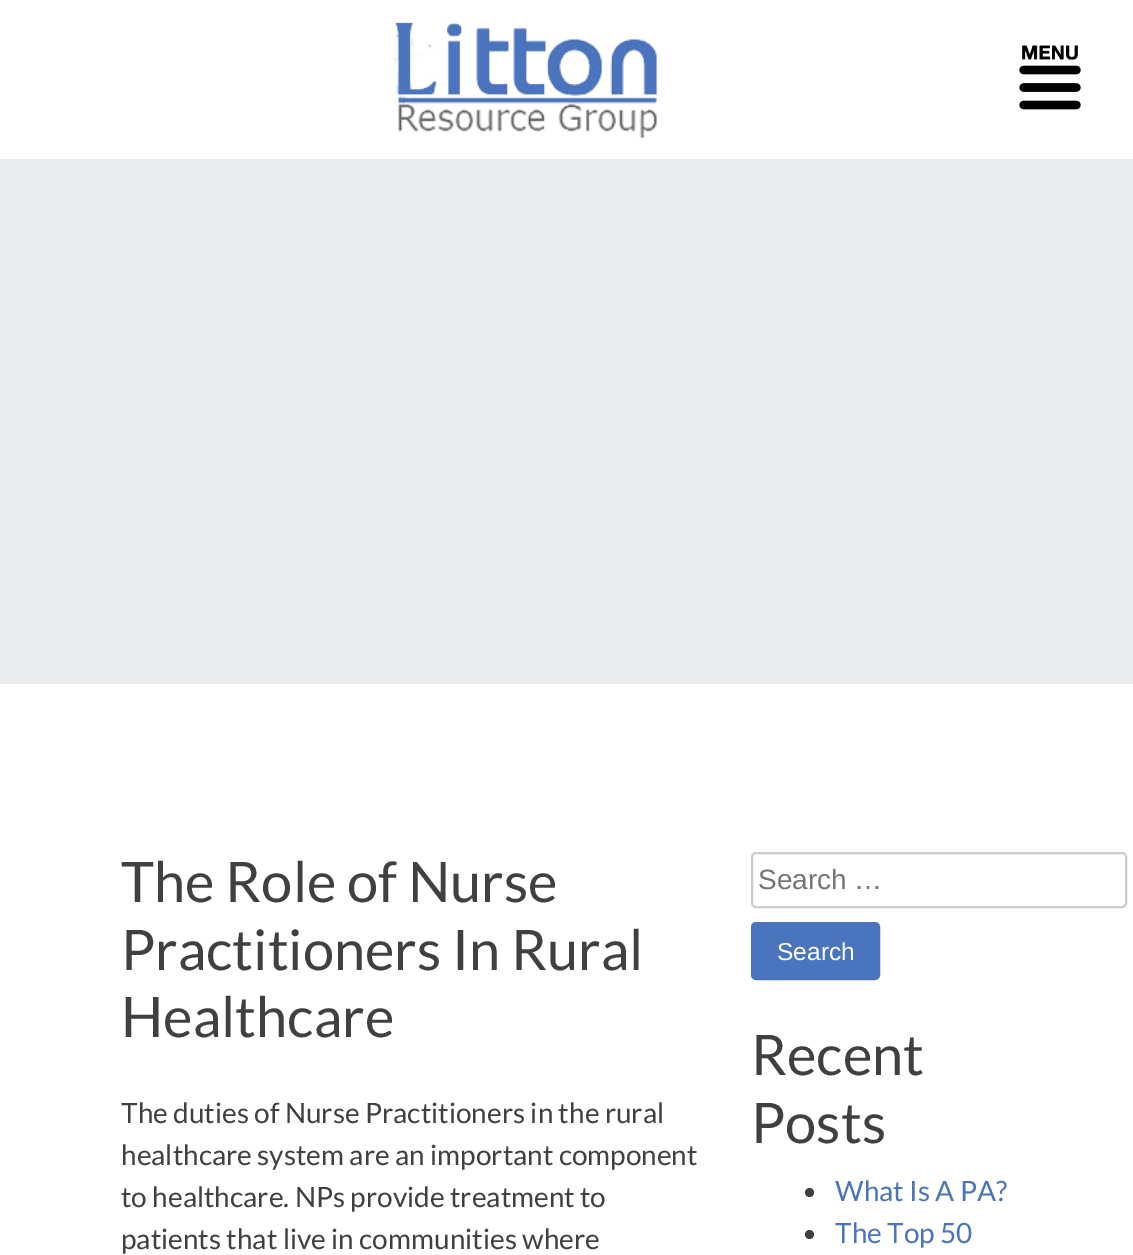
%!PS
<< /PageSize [1133 1255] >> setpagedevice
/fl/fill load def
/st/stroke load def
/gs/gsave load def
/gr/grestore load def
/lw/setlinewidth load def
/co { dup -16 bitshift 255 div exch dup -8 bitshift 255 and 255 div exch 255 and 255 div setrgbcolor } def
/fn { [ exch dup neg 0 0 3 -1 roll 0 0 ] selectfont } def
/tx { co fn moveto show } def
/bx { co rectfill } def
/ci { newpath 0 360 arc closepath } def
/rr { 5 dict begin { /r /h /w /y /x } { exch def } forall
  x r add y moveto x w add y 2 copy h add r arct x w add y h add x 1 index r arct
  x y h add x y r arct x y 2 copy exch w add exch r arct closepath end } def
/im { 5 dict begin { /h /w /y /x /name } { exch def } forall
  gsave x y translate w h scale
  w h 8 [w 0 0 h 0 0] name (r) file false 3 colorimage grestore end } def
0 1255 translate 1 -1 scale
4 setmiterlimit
0 0 1133 1255 16#FFFFFF bx
(media/1.raw) 393 22 265 116 im
(media/2.raw) 1019 45 62 65 im
0 159 1133 525 16#E9ECEF bx
16#CCCCCC co
2 lw
752 853 374 54 4 rr st
16#4A74BE co
752 923 127 56 4 rr gs fl gr
st
16#404040 co
809.5 1192.5 4.5 ci fl
809.5 1234.5 4.5 ci fl
(The Role of Nurse) 121 902 /Lato-Regular 56 16#404040 tx
(Practitioners In Rural) 121 970 /Lato-Regular 56 16#404040 tx
(Healthcare) 121 1037 /Lato-Regular 56 16#404040 tx
(The duties of Nurse Practitioners in the rural) 121 1123 /Lato-Regular 28 16#404040 tx
(healthcare system are an important component) 121 1165 /Lato-Regular 28 16#404040 tx
(to healthcare. NPs provide treatment to) 121 1207 /Lato-Regular 28 16#404040 tx
(patients that live in communities where) 121 1249 /Lato-Regular 28 16#404040 tx
(Search …) 758 889 /LiberationSans-Regular 28 16#757575 tx
(Search) 777 960 /LiberationSans-Regular 24.5 16#FFFFFF tx
(Recent) 751 1075 /Lato-Regular 56 16#404040 tx
(Posts) 751 1143 /Lato-Regular 56 16#404040 tx
(What Is A PA?) 835 1201 /Lato-Regular 28 16#4A74BE tx
(The Top 50) 835 1243 /Lato-Regular 28 16#4A74BE tx
showpage
